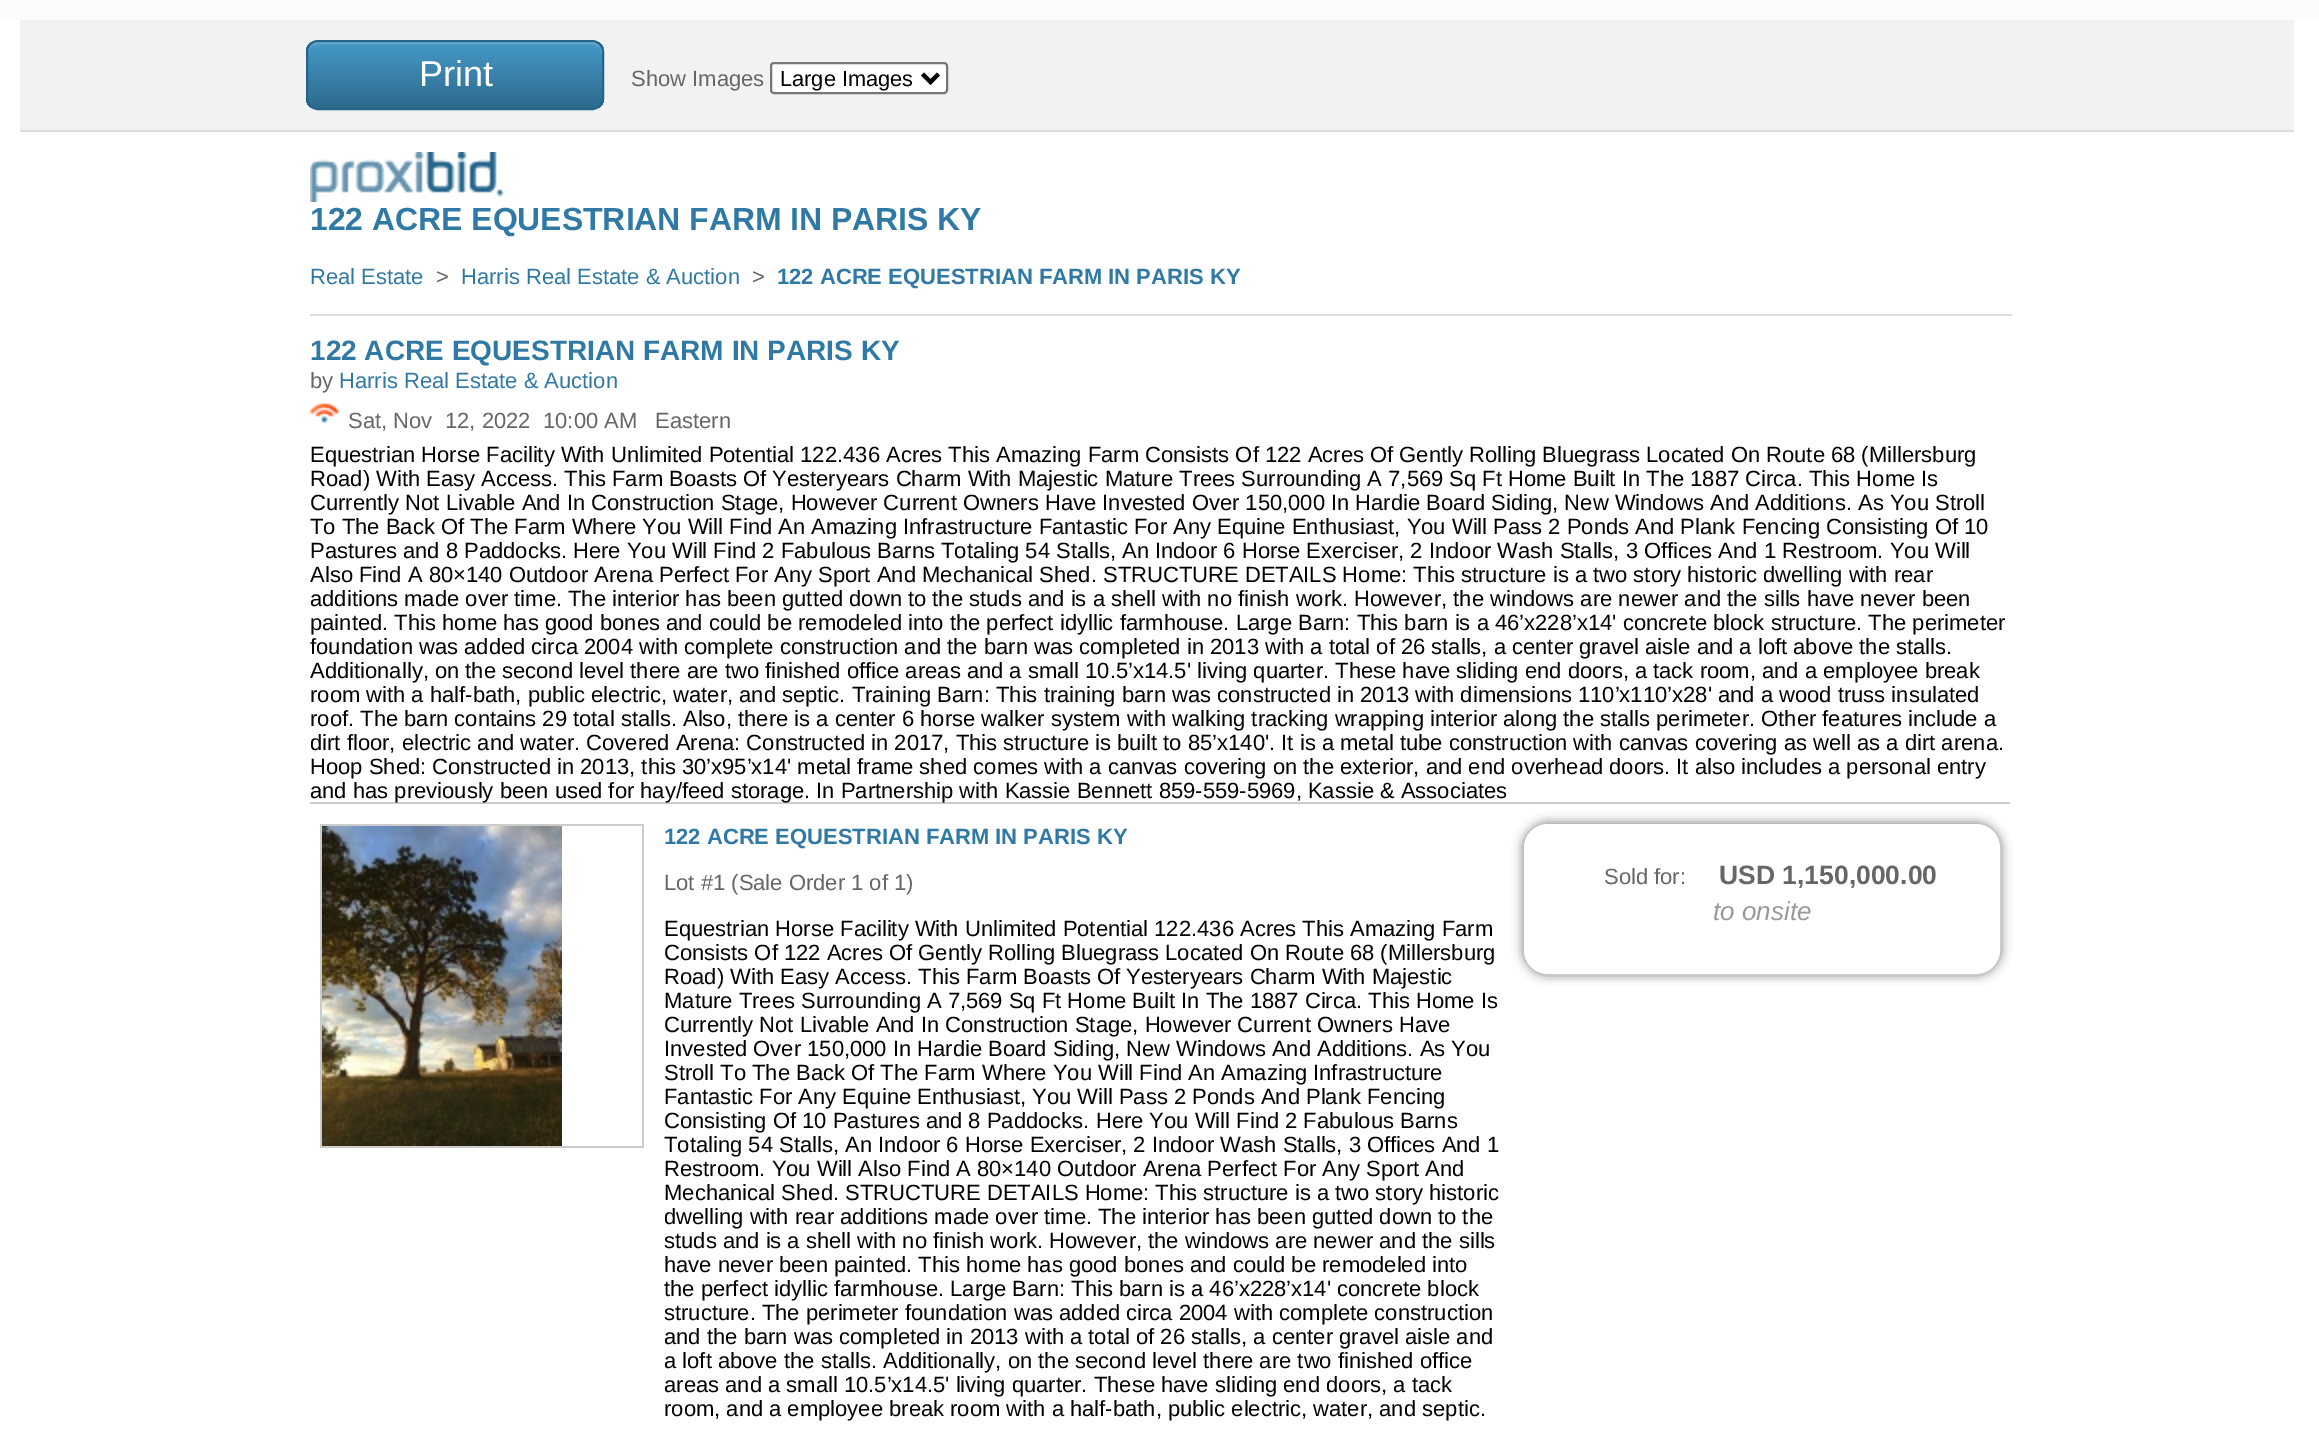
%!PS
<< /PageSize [2319 1435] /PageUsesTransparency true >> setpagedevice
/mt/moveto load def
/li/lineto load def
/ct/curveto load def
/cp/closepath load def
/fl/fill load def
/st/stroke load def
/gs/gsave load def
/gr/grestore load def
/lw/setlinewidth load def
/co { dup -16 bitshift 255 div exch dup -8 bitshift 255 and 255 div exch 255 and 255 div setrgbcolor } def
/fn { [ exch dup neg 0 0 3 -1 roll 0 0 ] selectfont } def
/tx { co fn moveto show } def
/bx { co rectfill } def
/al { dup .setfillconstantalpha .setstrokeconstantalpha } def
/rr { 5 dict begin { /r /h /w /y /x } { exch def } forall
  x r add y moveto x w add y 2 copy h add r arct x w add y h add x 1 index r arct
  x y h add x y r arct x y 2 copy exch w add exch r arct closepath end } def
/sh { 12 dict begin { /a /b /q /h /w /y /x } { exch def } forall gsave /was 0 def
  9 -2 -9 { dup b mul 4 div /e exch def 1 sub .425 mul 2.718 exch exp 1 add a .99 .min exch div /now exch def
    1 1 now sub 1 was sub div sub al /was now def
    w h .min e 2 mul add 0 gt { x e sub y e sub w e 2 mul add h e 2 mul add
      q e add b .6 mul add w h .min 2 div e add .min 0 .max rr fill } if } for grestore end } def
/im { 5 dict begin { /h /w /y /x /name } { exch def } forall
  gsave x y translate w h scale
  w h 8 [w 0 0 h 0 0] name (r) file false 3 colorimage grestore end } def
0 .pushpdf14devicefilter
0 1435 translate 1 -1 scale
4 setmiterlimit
0 0 2319 1435 16#FBFBFB bx
0 20 2319 1415 16#FFFFFF bx
20 20 2274 110 16#F2F2F2 bx
20 130 2274 2 16#DDDDDD bx
gs
306 40 298 70 12 rr clip newpath
gs 306 42 mt 604 42 li 604 108 li 306 108 li cp clip newpath
<< /ShadingType 2 /ColorSpace /DeviceRGB /Coords [308 42 308 108] /Extend [true true] /Function << /FunctionType 3 /Domain [0 1] /Functions [<< /FunctionType 2 /Domain [0 1] /C0 [.267 .592 .769] /C1 [.267 .592 .769] /N 1 >> << /FunctionType 2 /Domain [0 1] /C0 [.267 .592 .769] /C1 [.176 .416 .557] /N 1 >>] /Bounds [.05] /Encode [0 1 0 1] >> >> shfill gr
gr
16#69ACD0 co
318 44 mt 592 44 li 598 44 602 48 602 54 ct 602 52 li 602 46 598 42 592 42 ct 318 42 li 312 42 308 46 308 52 ct 308 54 li 308 48 312 44 318 44 ct cp fl
16#25658A co
2 lw
307 41 296 68 11 rr st
16#FFFFFF co
771 63 176 30 3 rr gs fl gr
16#767676 co
st
16#000000 co
4 lw
922.5 74 mt 930.5 82 li 938.5 74 li st
(media/1.raw) 310 152 194 50 im
310 314 1702 2 16#DDDDDD bx
(media/2.raw) 310 403 30 20 im
310 802 1700 2 16#CCCCCC bx
320 824 324 2 16#CCCCCC bx
642 824 2 324 16#CCCCCC bx
320 1146 324 2 16#CCCCCC bx
320 824 2 324 16#CCCCCC bx
(media/3.raw) 322 826 240 320 im
gs
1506 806 mt 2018 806 li 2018 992 li 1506 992 li cp 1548 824 mt 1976 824 li 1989.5 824 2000 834.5 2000 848 ct 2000 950 li 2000 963.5 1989.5 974 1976 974 ct 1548 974 li 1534.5 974 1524 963.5 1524 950 ct 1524 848 li 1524 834.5 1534.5 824 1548 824 ct cp eoclip newpath
16#8F8F8F co
1522 822 480 154 26 5 1 sh
gr
16#FFFFFF co
1526 826 472 146 22 rr st
(Print) 419 86 /LiberationSans-Regular 36 16#FFFFFF tx
(Show Images) 631 86 /LiberationSans-Regular 22 16#666666 tx
(Large Images) 780 86 /LiberationSans-Regular 21.75 16#000000 tx
(122 ACRE EQUESTRIAN FARM IN PARIS KY) 310 230 /LiberationSans-Bold 31.9 16#3079A4 tx
(Real Estate) 310 284 /LiberationSans-Regular 22 16#3079A4 tx
(>) 436 284 /LiberationSans-Regular 22 16#666666 tx
(Harris Real Estate & Auction) 461 284 /LiberationSans-Regular 22 16#3079A4 tx
(>) 752 284 /LiberationSans-Regular 22 16#666666 tx
(122 ACRE EQUESTRIAN FARM IN PARIS KY) 777 284 /LiberationSans-Bold 22 16#3079A4 tx
(122 ACRE EQUESTRIAN FARM IN PARIS KY) 310 360 /LiberationSans-Bold 28 16#3079A4 tx
(by) 310 388 /LiberationSans-Regular 22 16#666666 tx
(Harris Real Estate & Auction) 339 388 /LiberationSans-Regular 22 16#3079A4 tx
(Sat, Nov) 348 428 /LiberationSans-Regular 22 16#666666 tx
(12, 2022) 445 428 /LiberationSans-Regular 22 16#666666 tx
(10:00 AM) 543 428 /LiberationSans-Regular 22 16#666666 tx
(Eastern) 655 428 /LiberationSans-Regular 22 16#666666 tx
(Equestrian Horse Facility With Unlimited Potential 122.436 Acres This Amazing Farm Consists Of 122 Acres Of Gently Rolling Bluegrass Located On Route 68 \(Millersburg) 310 462 /LiberationSans-Regular 22 16#000000 tx
(Road\) With Easy Access. This Farm Boasts Of Yesteryears Charm With Majestic Mature Trees Surrounding A 7,569 Sq Ft Home Built In The 1887 Circa. This Home Is) 310 486 /LiberationSans-Regular 22 16#000000 tx
(Currently Not Livable And In Construction Stage, However Current Owners Have Invested Over 150,000 In Hardie Board Siding, New Windows And Additions. As You Stroll) 310 510 /LiberationSans-Regular 22 16#000000 tx
(To The Back Of The Farm Where You Will Find An Amazing Infrastructure Fantastic For Any Equine Enthusiast, You Will Pass 2 Ponds And Plank Fencing Consisting Of 10) 310 534 /LiberationSans-Regular 22 16#000000 tx
(Pastures and 8 Paddocks. Here You Will Find 2 Fabulous Barns Totaling 54 Stalls, An Indoor 6 Horse Exerciser, 2 Indoor Wash Stalls, 3 Offices And 1 Restroom. You Will) 310 558 /LiberationSans-Regular 22 16#000000 tx
(Also Find A 80×140 Outdoor Arena Perfect For Any Sport And Mechanical Shed. STRUCTURE DETAILS Home: This structure is a two story historic dwelling with rear) 310 582 /LiberationSans-Regular 22 16#000000 tx
(additions made over time. The interior has been gutted down to the studs and is a shell with no finish work. However, the windows are newer and the sills have never been) 310 606 /LiberationSans-Regular 22 16#000000 tx
(painted. This home has good bones and could be remodeled into the perfect idyllic farmhouse. Large Barn: This barn is a 46’x228’x14' concrete block structure. The perimeter) 310 630 /LiberationSans-Regular 22 16#000000 tx
(foundation was added circa 2004 with complete construction and the barn was completed in 2013 with a total of 26 stalls, a center gravel aisle and a loft above the stalls.) 310 654 /LiberationSans-Regular 22 16#000000 tx
(Additionally, on the second level there are two finished office areas and a small 10.5’x14.5' living quarter. These have sliding end doors, a tack room, and a employee break) 310 678 /LiberationSans-Regular 22 16#000000 tx
(room with a half-bath, public electric, water, and septic. Training Barn: This training barn was constructed in 2013 with dimensions 110’x110’x28' and a wood truss insulated) 310 702 /LiberationSans-Regular 22 16#000000 tx
(roof. The barn contains 29 total stalls. Also, there is a center 6 horse walker system with walking tracking wrapping interior along the stalls perimeter. Other features include a) 310 726 /LiberationSans-Regular 22 16#000000 tx
(dirt floor, electric and water. Covered Arena: Constructed in 2017, This structure is built to 85’x140'. It is a metal tube construction with canvas covering as well as a dirt arena.) 310 750 /LiberationSans-Regular 22 16#000000 tx
(Hoop Shed: Constructed in 2013, this 30’x95’x14' metal frame shed comes with a canvas covering on the exterior, and end overhead doors. It also includes a personal entry) 310 774 /LiberationSans-Regular 22 16#000000 tx
(and has previously been used for hay/feed storage. In Partnership with Kassie Bennett 859-559-5969, Kassie & Associates) 310 798 /LiberationSans-Regular 22 16#000000 tx
(122 ACRE EQUESTRIAN FARM IN PARIS KY) 664 844 /LiberationSans-Bold 22 16#3079A4 tx
(Lot #1 \(Sale Order 1 of 1\)) 664 890 /LiberationSans-Regular 22 16#666666 tx
(Equestrian Horse Facility With Unlimited Potential 122.436 Acres This Amazing Farm) 664 936 /LiberationSans-Regular 22 16#000000 tx
(Consists Of 122 Acres Of Gently Rolling Bluegrass Located On Route 68 \(Millersburg) 664 960 /LiberationSans-Regular 22 16#000000 tx
(Road\) With Easy Access. This Farm Boasts Of Yesteryears Charm With Majestic) 664 984 /LiberationSans-Regular 22 16#000000 tx
(Mature Trees Surrounding A 7,569 Sq Ft Home Built In The 1887 Circa. This Home Is) 664 1008 /LiberationSans-Regular 22 16#000000 tx
(Currently Not Livable And In Construction Stage, However Current Owners Have) 664 1032 /LiberationSans-Regular 22 16#000000 tx
(Invested Over 150,000 In Hardie Board Siding, New Windows And Additions. As You) 664 1056 /LiberationSans-Regular 22 16#000000 tx
(Stroll To The Back Of The Farm Where You Will Find An Amazing Infrastructure) 664 1080 /LiberationSans-Regular 22 16#000000 tx
(Fantastic For Any Equine Enthusiast, You Will Pass 2 Ponds And Plank Fencing) 664 1104 /LiberationSans-Regular 22 16#000000 tx
(Consisting Of 10 Pastures and 8 Paddocks. Here You Will Find 2 Fabulous Barns) 664 1128 /LiberationSans-Regular 22 16#000000 tx
(Totaling 54 Stalls, An Indoor 6 Horse Exerciser, 2 Indoor Wash Stalls, 3 Offices And 1) 664 1152 /LiberationSans-Regular 22 16#000000 tx
(Restroom. You Will Also Find A 80×140 Outdoor Arena Perfect For Any Sport And) 664 1176 /LiberationSans-Regular 22 16#000000 tx
(Mechanical Shed. STRUCTURE DETAILS Home: This structure is a two story historic) 664 1200 /LiberationSans-Regular 22 16#000000 tx
(dwelling with rear additions made over time. The interior has been gutted down to the) 664 1224 /LiberationSans-Regular 22 16#000000 tx
(studs and is a shell with no finish work. However, the windows are newer and the sills) 664 1248 /LiberationSans-Regular 22 16#000000 tx
(have never been painted. This home has good bones and could be remodeled into) 664 1272 /LiberationSans-Regular 22 16#000000 tx
(the perfect idyllic farmhouse. Large Barn: This barn is a 46’x228’x14' concrete block) 664 1296 /LiberationSans-Regular 22 16#000000 tx
(structure. The perimeter foundation was added circa 2004 with complete construction) 664 1320 /LiberationSans-Regular 22 16#000000 tx
(and the barn was completed in 2013 with a total of 26 stalls, a center gravel aisle and) 664 1344 /LiberationSans-Regular 22 16#000000 tx
(a loft above the stalls. Additionally, on the second level there are two finished office) 664 1368 /LiberationSans-Regular 22 16#000000 tx
(areas and a small 10.5’x14.5' living quarter. These have sliding end doors, a tack) 664 1392 /LiberationSans-Regular 22 16#000000 tx
(room, and a employee break room with a half-bath, public electric, water, and septic.) 664 1416 /LiberationSans-Regular 22 16#000000 tx
(Sold for:) 1604 884 /LiberationSans-Regular 22 16#666666 tx
(USD 1,150,000.00) 1719 884 /LiberationSans-Bold 26.5 16#666666 tx
(to onsite) 1713 920 /LiberationSans-Italic 26 16#999999 tx
.poppdf14devicefilter showpage
